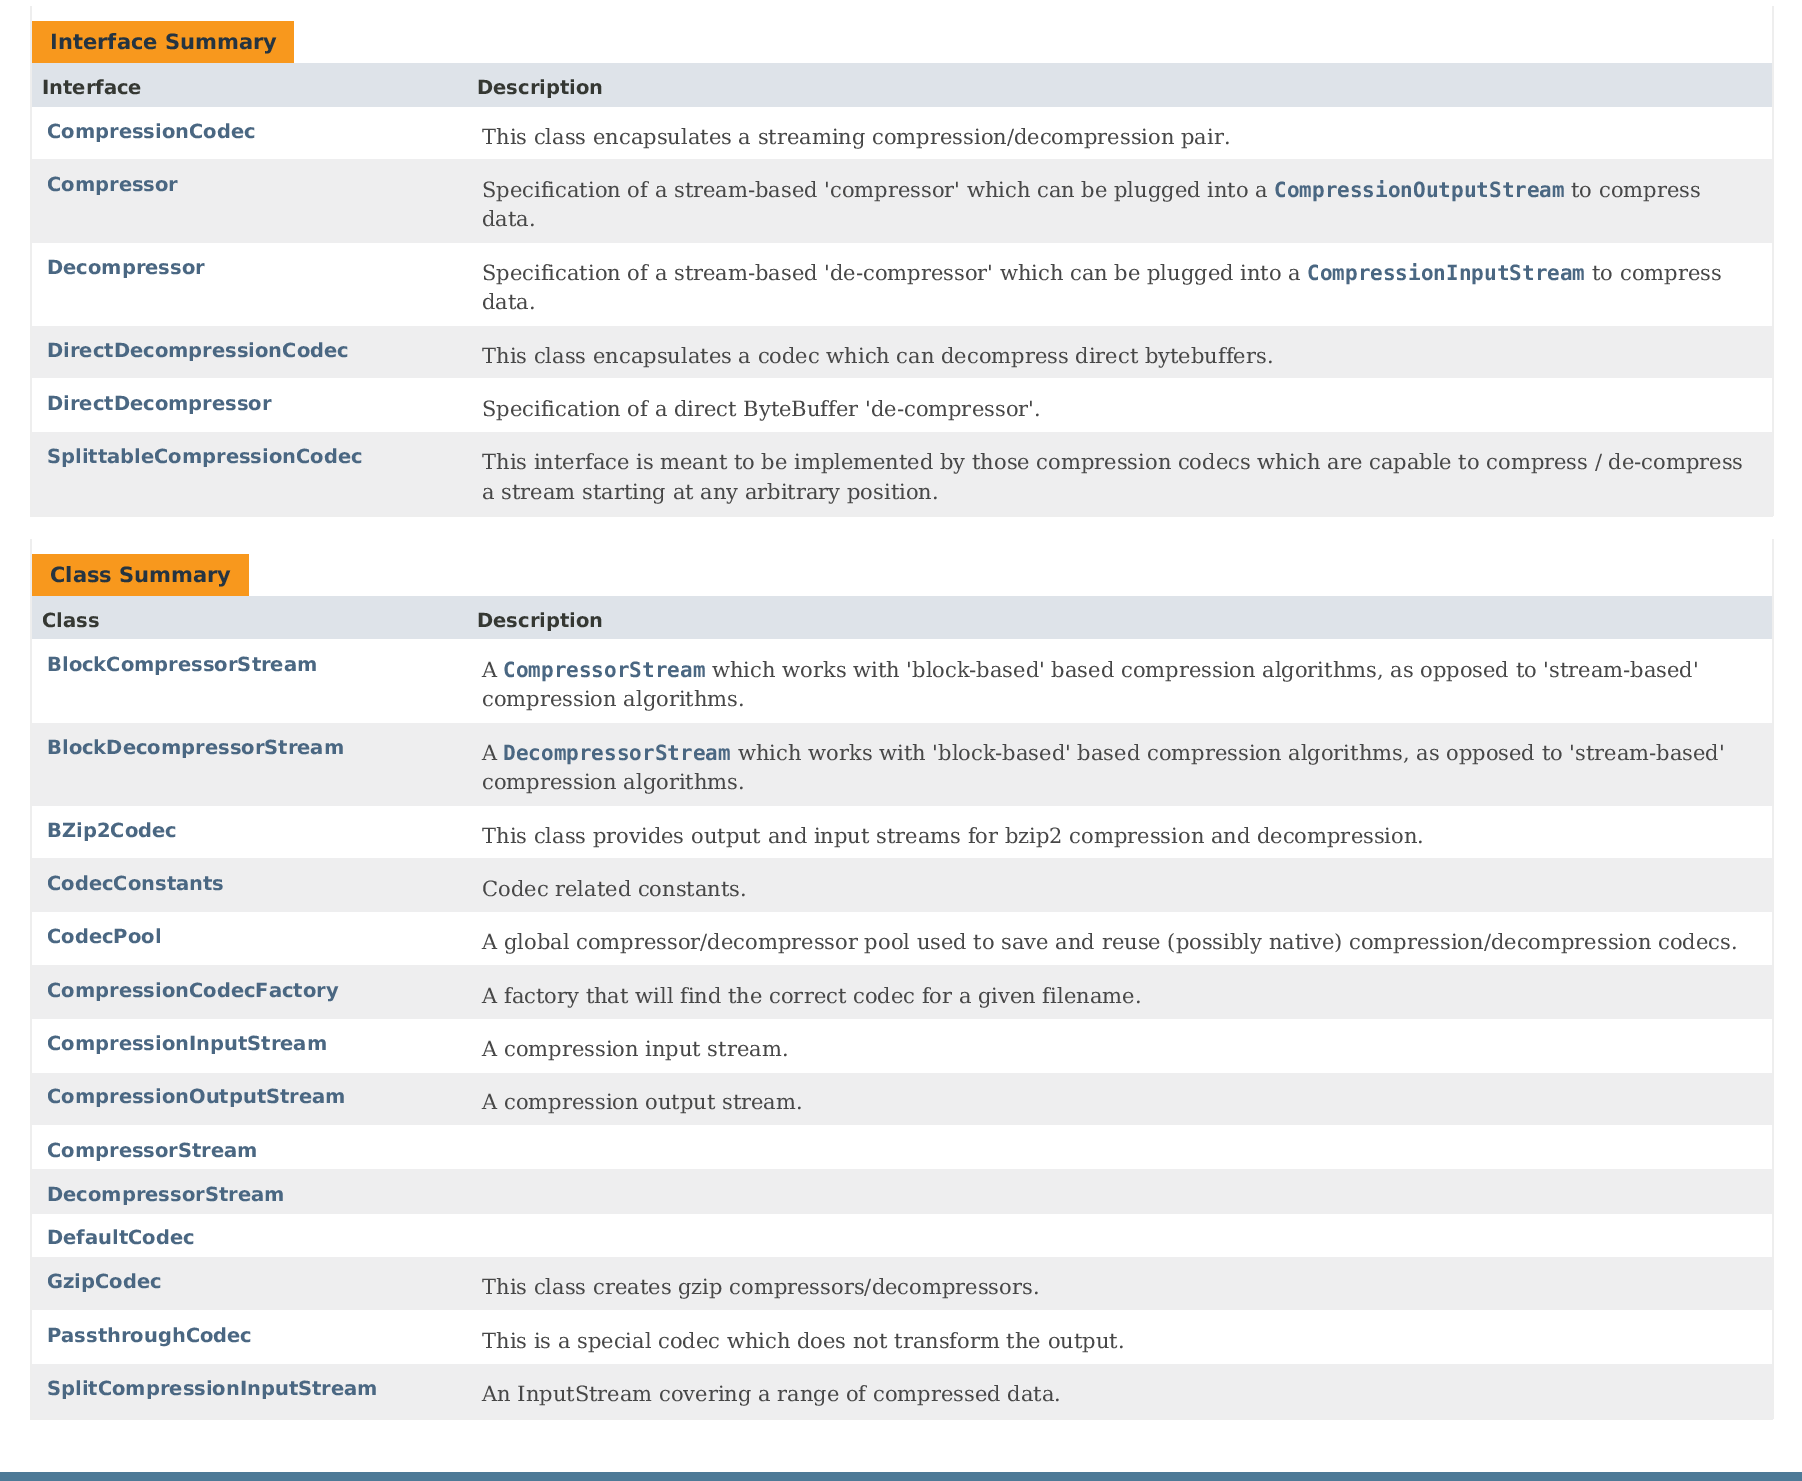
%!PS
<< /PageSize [1802 1481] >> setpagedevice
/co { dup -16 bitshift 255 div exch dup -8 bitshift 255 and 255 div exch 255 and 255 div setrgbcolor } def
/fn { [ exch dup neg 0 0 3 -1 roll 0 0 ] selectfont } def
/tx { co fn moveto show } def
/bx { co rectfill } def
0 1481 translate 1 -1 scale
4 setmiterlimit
0 0 1802 1481 16#FFFFFF bx
1772 6 2 510 16#EEEEEE bx
30 515 1743 2 16#EEEEEE bx
30 6 2 510 16#EEEEEE bx
32 21 262 42 16#F8981D bx
32 63 1740 44 16#DEE3E9 bx
32 159 1740 84 16#EEEEEF bx
32 326 1740 52 16#EEEEEF bx
32 432 1740 83 16#EEEEEF bx
1772 539 2 880 16#EEEEEE bx
30 1418 1743 2 16#EEEEEE bx
30 539 2 880 16#EEEEEE bx
32 554 217 42 16#F8981D bx
32 596 1740 43 16#DEE3E9 bx
32 723 1740 83 16#EEEEEF bx
32 858 1740 54 16#EEEEEF bx
32 965 1740 54 16#EEEEEF bx
32 1073 1740 52 16#EEEEEF bx
32 1169 1740 45 16#EEEEEF bx
32 1257 1740 53 16#EEEEEF bx
32 1364 1740 54 16#EEEEEF bx
0 1472 1802 9 16#4D7A97 bx
(Interface Summary) 50 49 /DejaVuSans-Bold 21 16#253441 tx
(Interface) 42 94 /DejaVuSans-Bold 19.5 16#353833 tx
(Description) 477 94 /DejaVuSans-Bold 19.5 16#353833 tx
(CompressionCodec) 47 138 /DejaVuSans-Bold 19.5 16#4A6782 tx
(This class encapsulates a streaming compression/decompression pair.) 482 144 /DejaVuSerif-Regular 21 16#474747 tx
(Compressor) 47 191 /DejaVuSans-Bold 19.5 16#4A6782 tx
(Specification of a stream-based 'compressor' which can be plugged into a) 482 197 /DejaVuSerif-Regular 21 16#474747 tx
(CompressionOutputStream) 1274 197 /DejaVuSansMono-Bold 21 16#4A6782 tx
(to compress) 1571 197 /DejaVuSerif-Regular 21 16#474747 tx
(data.) 482 226 /DejaVuSerif-Regular 21 16#474747 tx
(Decompressor) 47 274 /DejaVuSans-Bold 19.5 16#4A6782 tx
(Specification of a stream-based 'de-compressor' which can be plugged into a) 482 280 /DejaVuSerif-Regular 21 16#474747 tx
(CompressionInputStream) 1307 280 /DejaVuSansMono-Bold 21 16#4A6782 tx
(to compress) 1592 280 /DejaVuSerif-Regular 21 16#474747 tx
(data.) 482 309 /DejaVuSerif-Regular 21 16#474747 tx
(DirectDecompressionCodec) 47 357 /DejaVuSans-Bold 19.5 16#4A6782 tx
(This class encapsulates a codec which can decompress direct bytebuffers.) 482 363 /DejaVuSerif-Regular 21 16#474747 tx
(DirectDecompressor) 47 410 /DejaVuSans-Bold 19.5 16#4A6782 tx
(Specification of a direct ByteBuffer 'de-compressor'.) 482 416 /DejaVuSerif-Regular 21 16#474747 tx
(SplittableCompressionCodec) 47 463 /DejaVuSans-Bold 19.5 16#4A6782 tx
(This interface is meant to be implemented by those compression codecs which are capable to compress / de-compress) 482 469 /DejaVuSerif-Regular 21 16#474747 tx
(a stream starting at any arbitrary position.) 482 499 /DejaVuSerif-Regular 21 16#474747 tx
(Class Summary) 50 582 /DejaVuSans-Bold 21 16#253441 tx
(Class) 42 627 /DejaVuSans-Bold 19.5 16#353833 tx
(Description) 477 627 /DejaVuSans-Bold 19.5 16#353833 tx
(BlockCompressorStream) 47 671 /DejaVuSans-Bold 19.5 16#4A6782 tx
(A) 482 677 /DejaVuSerif-Regular 21 16#474747 tx
(CompressorStream) 503 677 /DejaVuSansMono-Bold 21 16#4A6782 tx
(which works with 'block-based' based compression algorithms, as opposed to 'stream-based') 712 677 /DejaVuSerif-Regular 21 16#474747 tx
(compression algorithms.) 482 706 /DejaVuSerif-Regular 21 16#474747 tx
(BlockDecompressorStream) 47 754 /DejaVuSans-Bold 19.5 16#4A6782 tx
(A) 482 760 /DejaVuSerif-Regular 21 16#474747 tx
(DecompressorStream) 503 760 /DejaVuSansMono-Bold 21 16#4A6782 tx
(which works with 'block-based' based compression algorithms, as opposed to 'stream-based') 738 760 /DejaVuSerif-Regular 21 16#474747 tx
(compression algorithms.) 482 789 /DejaVuSerif-Regular 21 16#474747 tx
(BZip2Codec) 47 837 /DejaVuSans-Bold 19.5 16#4A6782 tx
(This class provides output and input streams for bzip2 compression and decompression.) 482 843 /DejaVuSerif-Regular 21 16#474747 tx
(CodecConstants) 47 890 /DejaVuSans-Bold 19.5 16#4A6782 tx
(Codec related constants.) 482 896 /DejaVuSerif-Regular 21 16#474747 tx
(CodecPool) 47 943 /DejaVuSans-Bold 19.5 16#4A6782 tx
(A global compressor/decompressor pool used to save and reuse \(possibly native\) compression/decompression codecs.) 482 949 /DejaVuSerif-Regular 21 16#474747 tx
(CompressionCodecFactory) 47 997 /DejaVuSans-Bold 19.5 16#4A6782 tx
(A factory that will find the correct codec for a given filename.) 482 1003 /DejaVuSerif-Regular 21 16#474747 tx
(CompressionInputStream) 47 1050 /DejaVuSans-Bold 19.5 16#4A6782 tx
(A compression input stream.) 482 1056 /DejaVuSerif-Regular 21 16#474747 tx
(CompressionOutputStream) 47 1103 /DejaVuSans-Bold 19.5 16#4A6782 tx
(A compression output stream.) 482 1109 /DejaVuSerif-Regular 21 16#474747 tx
(CompressorStream) 47 1157 /DejaVuSans-Bold 19.5 16#4A6782 tx
(DecompressorStream) 47 1201 /DejaVuSans-Bold 19.5 16#4A6782 tx
(DefaultCodec) 47 1244 /DejaVuSans-Bold 19.5 16#4A6782 tx
(GzipCodec) 47 1288 /DejaVuSans-Bold 19.5 16#4A6782 tx
(This class creates gzip compressors/decompressors.) 482 1294 /DejaVuSerif-Regular 21 16#474747 tx
(PassthroughCodec) 47 1342 /DejaVuSans-Bold 19.5 16#4A6782 tx
(This is a special codec which does not transform the output.) 482 1348 /DejaVuSerif-Regular 21 16#474747 tx
(SplitCompressionInputStream) 47 1395 /DejaVuSans-Bold 19.5 16#4A6782 tx
(An InputStream covering a range of compressed data.) 482 1401 /DejaVuSerif-Regular 21 16#474747 tx
showpage
